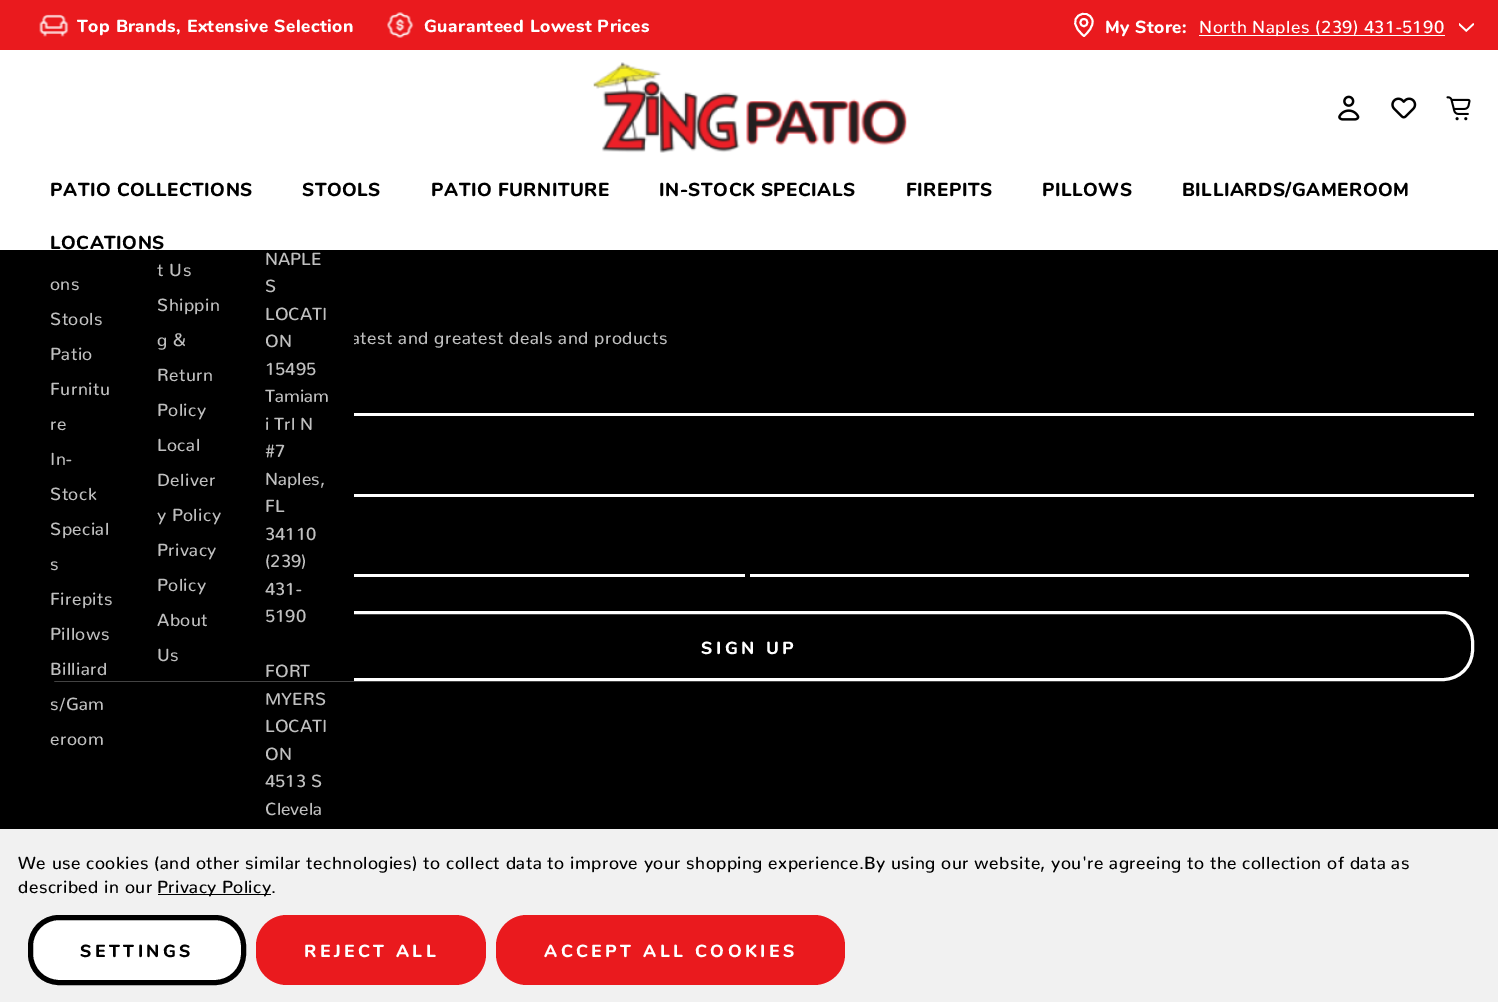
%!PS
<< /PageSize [1498 1002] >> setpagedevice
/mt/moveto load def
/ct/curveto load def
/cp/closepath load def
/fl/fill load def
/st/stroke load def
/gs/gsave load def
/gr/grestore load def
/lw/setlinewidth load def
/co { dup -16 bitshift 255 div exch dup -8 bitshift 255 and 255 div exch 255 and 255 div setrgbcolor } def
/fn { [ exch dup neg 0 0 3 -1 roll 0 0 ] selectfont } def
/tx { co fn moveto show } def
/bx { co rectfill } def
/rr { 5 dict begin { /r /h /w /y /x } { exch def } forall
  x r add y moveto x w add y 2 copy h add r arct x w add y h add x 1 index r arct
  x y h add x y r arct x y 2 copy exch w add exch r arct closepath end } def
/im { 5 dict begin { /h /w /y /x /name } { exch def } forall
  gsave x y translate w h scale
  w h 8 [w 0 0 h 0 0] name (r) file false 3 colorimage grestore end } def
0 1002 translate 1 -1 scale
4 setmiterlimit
0 0 1498 1002 16#000000 bx
0 50 1498 200 16#FFFFFF bx
0 0 1498 50 16#EA1A1E bx
(media/1.raw) 39 14 30 23 im
(media/2.raw) 387 12 27 26 im
16#FFFFFF co
1.9 lw
1 setlinecap
1 setlinejoin
1084 26 mt 1079 26 1079 19 1084 19 ct 1088.5 19 1088.5 26 1084 26 ct cp 1084 36 mt 1061 17.5 1089 5.5 1092.5 20.5 ct 1093.5 26.5 1088 32.5 1084 36 ct cp st
1199 35 246 1 16#FFFFFF bx
(media/3.raw) 1459 23 15 9 im
(media/4.raw) 593 62 314 91 im
(media/5.raw) 1338 95 22 26 im
(media/6.raw) 1391 97 26 22 im
(media/7.raw) 1446 96 25 25 im
354 413 1120 3 16#FFFFFF bx
354 494 1120 3 16#FFFFFF bx
354 574 391 3 16#FFFFFF bx
750 574 719 3 16#FFFFFF bx
3 lw
0 setlinecap
0 setlinejoin
26.5 612.5 1446 67 29.5 rr st
0 829 1498 173 16#F1F1F1 bx
158 894 113 1 16#000000 bx
16#FFFFFF co
30.5 917.5 213 65 28.5 rr gs fl gr
16#000000 co
5 lw
st
16#EA1A1E co
256 915 230 70 31 rr fl
496 915 349 70 31 rr fl
/Nunito-ExtraBold 17.5 fn
16#FFFFFF co
77 32 mt .44 0 (Top Brands, Extensive Selection) ashow
424 32 mt .44 0 (Guaranteed Lowest Prices) ashow
1105 33 mt .44 0 (My Store:) ashow
/Nunito-Medium 17.5 fn
1199 33 mt .44 0 (North Naples \(239\) 431-5190) ashow
/Nunito-ExtraBold 18.75 fn
16#000000 co
50 196 mt .5 0 (PATIO COLLECTIONS) ashow
302 196 mt .5 0 (STOOLS) ashow
431 196 mt .5 0 (PATIO FURNITURE) ashow
659 196 mt .5 0 (IN-STOCK SPECIALS) ashow
906 196 mt .5 0 (FIREPITS) ashow
1042 196 mt .5 0 (PILLOWS) ashow
1182 196 mt .5 0 (BILLIARDS/GAMEROOM) ashow
50 249 mt .5 0 (LOCATIONS) ashow
/Nunito-Medium 17.5 fn
16#BFBFBF co
50 290 mt .44 0 (ons) ashow
50 325 mt .44 0 (Stools) ashow
50 710 mt .44 0 (s/Gam) ashow
50 745 mt .44 0 (eroom) ashow
157 276 mt .44 0 (t Us) ashow
157 311 mt .44 0 (Shippin) ashow
(NAPLE) 265 265 /Nunito-Medium 17.5 16#BFBFBF tx
(S) 265 292 /Nunito-Medium 17.5 16#BFBFBF tx
(LOCATI) 265 320 /Nunito-Medium 17.5 16#BFBFBF tx
(MYERS) 265 705 /Nunito-Medium 17.5 16#BFBFBF tx
(LOCATI) 265 732 /Nunito-Medium 17.5 16#BFBFBF tx
(ON) 265 760 /Nunito-Medium 17.5 16#BFBFBF tx
(4513 S) 265 787 /Nunito-Medium 17.5 16#BFBFBF tx
(Clevela) 265 815 /Nunito-Medium 17.5 16#BFBFBF tx
351 344 mt .44 0 (atest and greatest deals and products) ashow
25 335 329 346 16#000000 bx
(FORT) 265 677 /Nunito-Medium 17.5 16#BFBFBF tx
(5190) 265 622 /Nunito-Medium 17.5 16#BFBFBF tx
(431-) 265 595 /Nunito-Medium 17.5 16#BFBFBF tx
(\(239\)) 265 567 /Nunito-Medium 17.5 16#BFBFBF tx
(34110) 265 540 /Nunito-Medium 17.5 16#BFBFBF tx
(FL) 265 512 /Nunito-Medium 17.5 16#BFBFBF tx
(Naples,) 265 485 /Nunito-Medium 17.5 16#BFBFBF tx
(#7) 265 457 /Nunito-Medium 17.5 16#BFBFBF tx
(i Trl N) 265 430 /Nunito-Medium 17.5 16#BFBFBF tx
(Tamiam) 265 402 /Nunito-Medium 17.5 16#BFBFBF tx
(15495) 265 375 /Nunito-Medium 17.5 16#BFBFBF tx
(ON) 265 347 /Nunito-Medium 17.5 16#BFBFBF tx
157 661 mt .44 0 (Us) ashow
157 626 mt .44 0 (About) ashow
157 591 mt .44 0 (Policy) ashow
157 556 mt .44 0 (Privacy) ashow
157 521 mt .44 0 (y Policy) ashow
157 486 mt .44 0 (Deliver) ashow
157 451 mt .44 0 (Local) ashow
157 416 mt .44 0 (Policy) ashow
157 381 mt .44 0 (Return) ashow
157 346 mt .44 0 (g &) ashow
50 675 mt .44 0 (Billiard) ashow
50 640 mt .44 0 (Pillows) ashow
50 605 mt .44 0 (Firepits) ashow
50 570 mt .44 0 (s) ashow
50 535 mt .44 0 (Special) ashow
50 500 mt .44 0 (Stock) ashow
50 465 mt .44 0 (In-) ashow
50 430 mt .44 0 (re) ashow
50 395 mt .44 0 (Furnitu) ashow
50 360 mt .44 0 (Patio) ashow
/Nunito-ExtraBold 17.5 fn
16#FFFFFF co
701 654 mt 3.5 0 (SIGN UP) ashow
/Nunito-Medium 17.5 fn
16#000000 co
18 869 mt .44 0 (We use cookies \(and other similar technologies\) to collect data to improve your shopping experience.By using our website, you're agreeing to the collection of data as) ashow
18 893 mt .44 0 (described in our) ashow
157 893 mt .44 0 (Privacy Policy.) ashow
/Nunito-ExtraBold 17.5 fn
80 957 mt 3.5 0 (SETTINGS) ashow
16#FFFFFF co
304 957 mt 3.5 0 (REJECT ALL) ashow
544 957 mt 3.5 0 (ACCEPT ALL COOKIES) ashow
showpage
